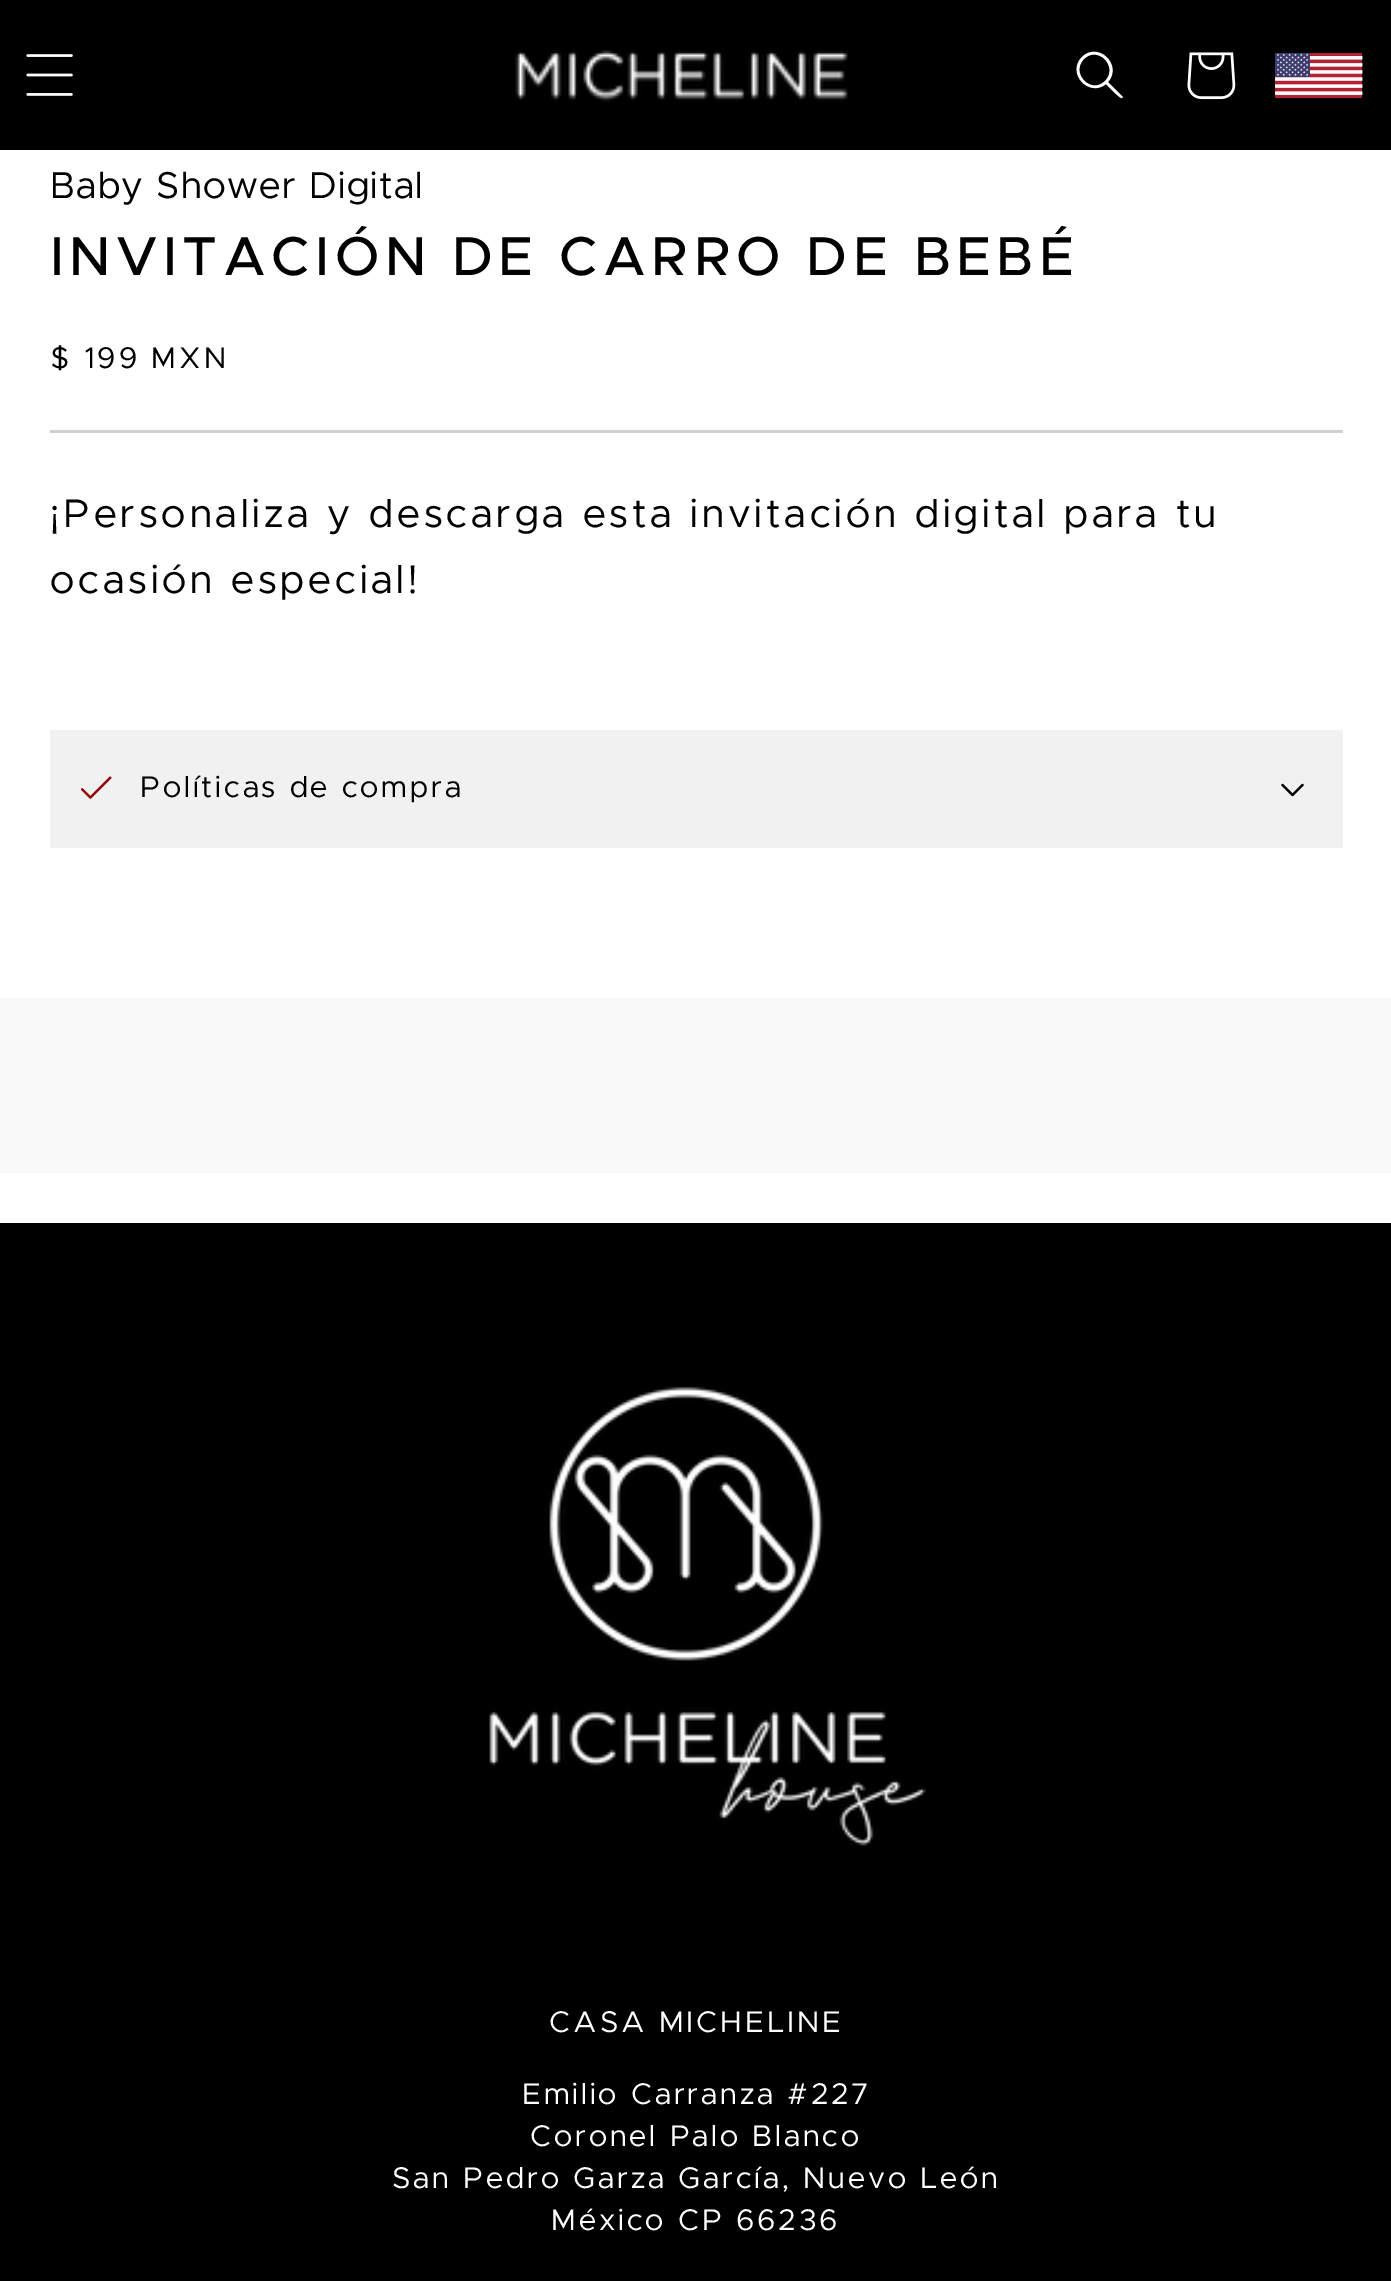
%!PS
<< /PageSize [1391 2281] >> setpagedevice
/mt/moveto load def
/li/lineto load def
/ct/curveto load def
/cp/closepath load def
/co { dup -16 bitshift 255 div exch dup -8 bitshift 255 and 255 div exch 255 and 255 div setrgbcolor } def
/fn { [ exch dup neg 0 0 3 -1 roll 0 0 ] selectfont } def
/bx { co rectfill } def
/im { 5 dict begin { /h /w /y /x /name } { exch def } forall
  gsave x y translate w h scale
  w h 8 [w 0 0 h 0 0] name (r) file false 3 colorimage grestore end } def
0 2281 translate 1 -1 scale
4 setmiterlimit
0 0 1391 2281 16#FFFFFF bx
0 0 1391 150 16#000000 bx
(media/1.raw) 26 54 47 42 im
(media/2.raw) 515 50 333 52 im
16#FFFFFF co
1105 81 mt 1091 95 1070 73 1084 59 ct 1098 45 1119 67 1105 81 ct cp 1106 84 mt 1089 98 1066 73 1082 57 ct 1098 41 1123 65 1108 82 ct 1123 97 li 1122 98 li 1120 99 1108 86 1106 84 ct cp eofill
(media/3.raw) 1187 52 49 48 im
(media/4.raw) 1275 53 88 45 im
50 430 1293 3 16#D0D0D0 bx
50 730 1293 118 16#F1F1F1 bx
(media/5.raw) 80 776 32 23 im
(media/6.raw) 1281 783 23 14 im
0 998 1391 175 16#F9F9F9 bx
0 1223 1391 1058 16#000000 bx
(media/7.raw) 489 1386 437 460 im
/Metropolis-Regular 37.5 fn
50 198 mt 1.5 0 (Baby Shower Digital) ashow
/Metropolis-Medium 55 fn
50 275 mt 5.5 0 (INVITACIÓN DE CARRO DE BEBÉ) ashow
/Metropolis-Regular 30 fn
50 368 mt 3 0 ($ 199 MXN) ashow
/Metropolis-Regular 40 fn
50 527 mt 4 0 (¡Personaliza y descarga esta invitación digital para tu) ashow
50 593 mt 4 0 (ocasión especial!) ashow
/Metropolis-Regular 30 fn
140 797 mt 3 0 (Políticas de compra) ashow
16#FFFFFF co
549 2032 mt 3 0 (CASA MICHELINE) ashow
522 2104 mt 3 0 (Emilio Carranza #227) ashow
530 2146 mt 3 0 (Coronel Palo Blanco) ashow
392 2188 mt 3 0 (San Pedro Garza García, Nuevo León) ashow
551 2230 mt 3 0 (México CP 66236) ashow
showpage
